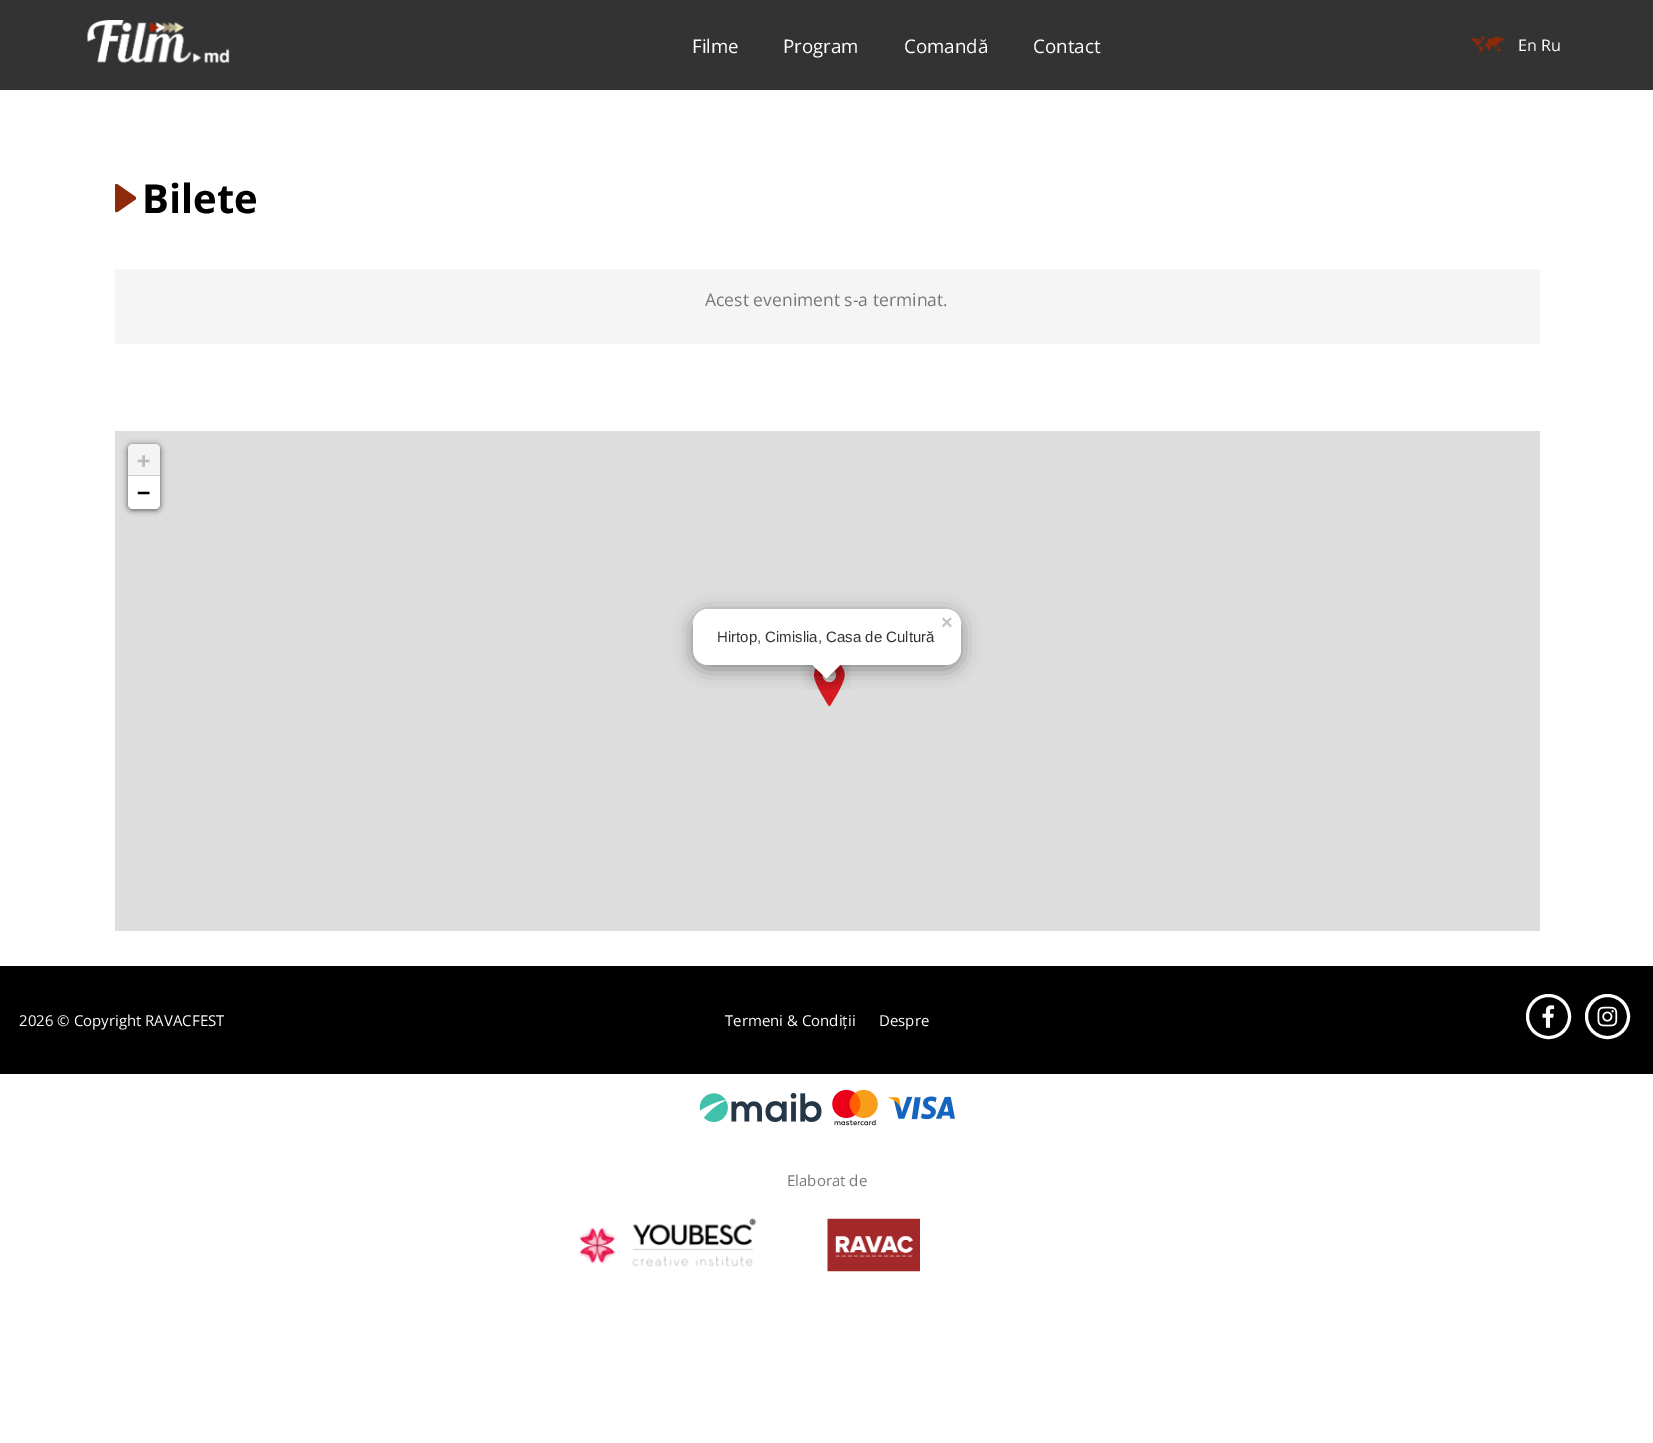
%!PS
<< /PageSize [1653 1443] /PageUsesTransparency true >> setpagedevice
/mt/moveto load def
/li/lineto load def
/ct/curveto load def
/cp/closepath load def
/fl/fill load def
/st/stroke load def
/gs/gsave load def
/gr/grestore load def
/lw/setlinewidth load def
/co { dup -16 bitshift 255 div exch dup -8 bitshift 255 and 255 div exch 255 and 255 div setrgbcolor } def
/fn { [ exch dup neg 0 0 3 -1 roll 0 0 ] selectfont } def
/tx { co fn moveto show } def
/bx { co rectfill } def
/al { dup .setfillconstantalpha .setstrokeconstantalpha } def
/ci { newpath 0 360 arc closepath } def
/rr { 5 dict begin { /r /h /w /y /x } { exch def } forall
  x r add y moveto x w add y 2 copy h add r arct x w add y h add x 1 index r arct
  x y h add x y r arct x y 2 copy exch w add exch r arct closepath end } def
/sh { 12 dict begin { /a /b /q /h /w /y /x } { exch def } forall gsave /was 0 def
  9 -2 -9 { dup b mul 4 div /e exch def 1 sub .425 mul 2.718 exch exp 1 add a .99 .min exch div /now exch def
    1 1 now sub 1 was sub div sub al /was now def
    w h .min e 2 mul add 0 gt { x e sub y e sub w e 2 mul add h e 2 mul add
      q e add b .6 mul add w h .min 2 div e add .min 0 .max rr fill } if } for grestore end } def
/im { 5 dict begin { /h /w /y /x /name } { exch def } forall
  gsave x y translate w h scale
  w h 8 [w 0 0 h 0 0] name (r) file false 3 colorimage grestore end } def
0 .pushpdf14devicefilter
0 1443 translate 1 -1 scale
4 setmiterlimit
0 0 1653 1443 16#FFFFFF bx
0 0 1653 90 16#333333 bx
(media/1.raw) 87 20 143 43 im
(media/2.raw) 1471 36 33 18 im
(media/3.raw) 115 184 21 29 im
115 269 1425 75 16#F5F5F5 bx
115 431 1425 500 16#DDDDDD bx
16#000000 co
128 445 32 65 5 3 .65 sh
16#F4F4F4 co
133 444 mt 155 444 li 158 444 160 446 160 449 ct 160 476 li 128 476 li 128 449 li 128 446 130 444 133 444 ct cp fl
128 475 32 1 16#CCCCCC bx
16#FFFFFF co
128 476 mt 160 476 li 160 504 li 160 507 158 509 155 509 ct 133 509 li 130 509 128 507 128 504 ct cp fl
(media/4.raw) 813 665 32 41 im
16#000000 co
693 613 268 56 15 9 .4 sh
16#FFFFFF co
693 609 268 56 15 rr fl
gs
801 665 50 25 rectclip
16#000000 co
816 656 22 22 0 9 .4 sh
gr
gs
801 665 50 25 rectclip
826.5 648.5 mt 841.5 663.5 li 826.5 678.5 li 811 663.5 li cp fl
gr
0 966 1653 108 16#000000 bx
16#FFFFFF co
3 lw
1548.5 1016.5 21 ci st
(media/5.raw) 1542 1005 13 23 im
1607.5 1016.5 21 ci st
(media/6.raw) 1597 1006 21 21 im
(media/7.raw) 699 1093 123 29 im
(media/8.raw) 832 1089 46 37 im
(media/9.raw) 888 1096 67 24 im
(media/10.raw) 578 1218 179 49 im
(media/11.raw) 827 1218 93 54 im
(Filme) 692 53 /OpenSans-Regular 18.75 16#FFFFFF tx
(Program) 783 53 /OpenSans-Regular 18.75 16#FFFFFF tx
(Comandă) 904 53 /OpenSans-Regular 18.75 16#FFFFFF tx
(Contact) 1033 53 /OpenSans-Regular 18.75 16#FFFFFF tx
(En) 1518 51 /OpenSans-Regular 16 16#FFFFFF tx
(Ru) 1541 51 /OpenSans-Regular 16 16#FFFFFF tx
(Bilete) 142 213 /OpenSans-Bold 40 16#000000 tx
(Acest eveniment s-a terminat.) 705 306 /OpenSans-Regular 17.5 16#777777 tx
(+) 137 468 /DejaVuSansMono-Bold 22 16#BBBBBB tx
(−) 137 500 /DejaVuSansMono-Bold 22 16#000000 tx
(×) 941 629 /LiberationSans-Bold 20 16#C3C3C3 tx
(Hirtop, Cimislia, Casa de Cultură) 717 642 /LiberationSans-Regular 15 16#333333 tx
(2026 © Copyright RAVACFEST) 19 1026 /OpenSans-Regular 15 16#FFFFFF tx
(Termeni & Condiții) 725 1026 /OpenSans-Regular 15 16#FFFFFF tx
(Despre) 879 1026 /OpenSans-Regular 15 16#FFFFFF tx
(Elaborat de) 787 1186 /OpenSans-Regular 15 16#777777 tx
.poppdf14devicefilter showpage
